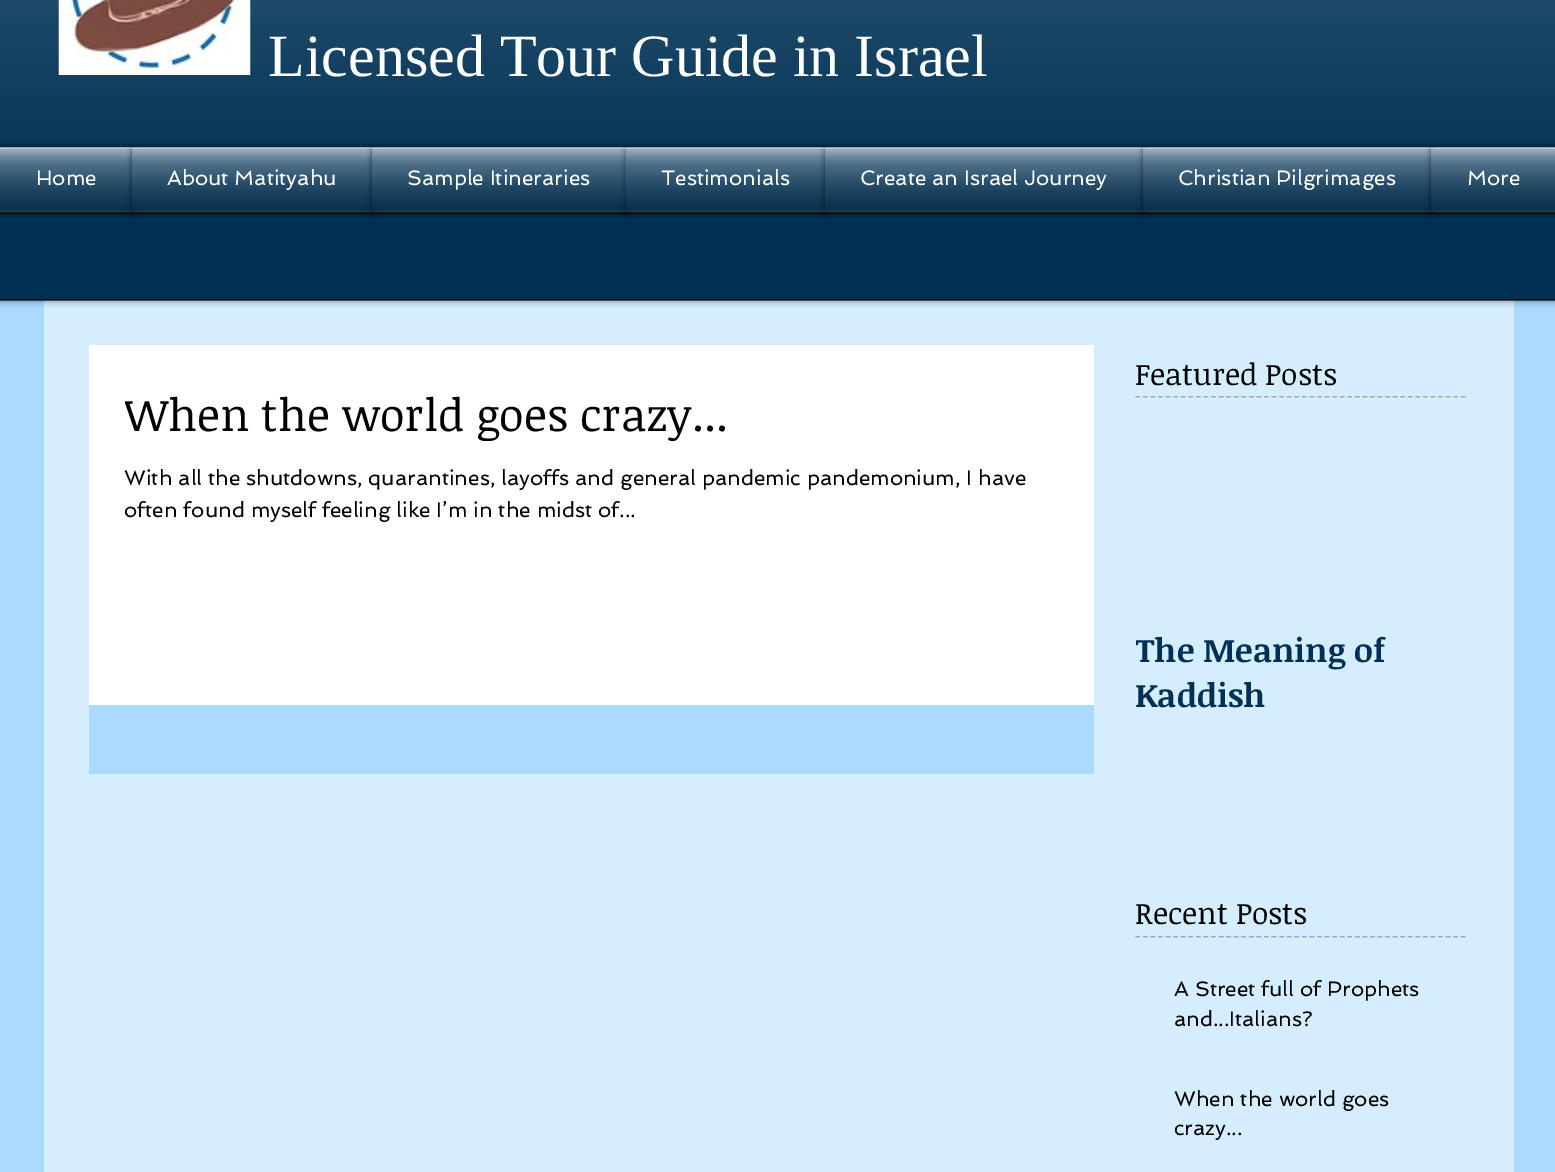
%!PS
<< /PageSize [1555 1172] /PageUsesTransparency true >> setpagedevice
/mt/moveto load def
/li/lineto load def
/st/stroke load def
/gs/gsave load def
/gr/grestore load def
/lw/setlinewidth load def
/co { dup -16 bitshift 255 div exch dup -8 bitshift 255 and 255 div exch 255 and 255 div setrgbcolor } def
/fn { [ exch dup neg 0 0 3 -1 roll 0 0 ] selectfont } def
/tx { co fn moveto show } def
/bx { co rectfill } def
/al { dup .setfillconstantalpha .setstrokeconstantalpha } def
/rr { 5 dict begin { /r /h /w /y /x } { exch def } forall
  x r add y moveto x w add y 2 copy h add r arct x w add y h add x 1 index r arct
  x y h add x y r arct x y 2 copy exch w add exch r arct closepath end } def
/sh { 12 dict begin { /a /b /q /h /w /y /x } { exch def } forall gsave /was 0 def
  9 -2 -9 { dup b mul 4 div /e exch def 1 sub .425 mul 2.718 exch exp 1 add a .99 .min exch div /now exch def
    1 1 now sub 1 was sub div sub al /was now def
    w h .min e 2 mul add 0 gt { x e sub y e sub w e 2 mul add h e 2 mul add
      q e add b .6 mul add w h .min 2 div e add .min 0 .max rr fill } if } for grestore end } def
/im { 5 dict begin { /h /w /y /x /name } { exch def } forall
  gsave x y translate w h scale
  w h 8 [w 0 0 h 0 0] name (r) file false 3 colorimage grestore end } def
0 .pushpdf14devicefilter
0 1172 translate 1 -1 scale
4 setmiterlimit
0 0 1555 1172 16#AADBFF bx
44 300 1470 872 16#D5EEFF bx
16#000000 co
0 -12 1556 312 0 4 .6 sh
0 0 1555 300 16#003154 bx
(media/1.raw) 0 0 1555 147 im
0.6 al
0 299 1555 2 16#000000 bx
1 al
(media/2.raw) 58 0 193 75 im
0 147 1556 66 0 4 .6 sh
0 210 1555 3 16#003154 bx
(media/3.raw) 0 210 1555 3 im
0.6 al
0 212 1555 2 16#000000 bx
1 al
0 147 1555 2 16#B3C2CC bx
16#000000 co
0 150 132 62 0 3 .6 sh
0 149 132 61 16#003154 bx
(media/4.raw) 0 148 132 62 im
(media/5.raw) 0 164 132 46 im
16#000000 co
132 150 240 62 0 3 .6 sh
132 149 240 61 16#003154 bx
(media/6.raw) 132 148 240 62 im
(media/7.raw) 132 164 240 46 im
16#000000 co
372 150 254 62 0 3 .6 sh
372 149 254 61 16#003154 bx
(media/8.raw) 372 148 254 62 im
(media/9.raw) 372 164 254 46 im
16#000000 co
626 150 199 62 0 3 .6 sh
626 149 199 61 16#003154 bx
(media/10.raw) 625 148 200 62 im
(media/11.raw) 625 164 200 46 im
16#000000 co
825 150 318 62 0 3 .6 sh
825 149 318 61 16#003154 bx
(media/12.raw) 825 148 318 62 im
(media/13.raw) 825 164 318 46 im
16#000000 co
1143 150 288 62 0 3 .6 sh
1143 149 288 61 16#003154 bx
(media/14.raw) 1143 148 288 62 im
(media/15.raw) 1143 164 288 46 im
16#000000 co
1431 150 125 62 0 3 .6 sh
1431 149 124 61 16#003154 bx
(media/16.raw) 1431 148 124 62 im
(media/17.raw) 1431 164 124 46 im
89 705 1005 69 16#AADBFF bx
89 345 1005 360 16#FFFFFF bx
16#8A9BA6 co
1.5 lw
[4.5 3.07] 0 setdash
1135.5 397 mt 1465.5 397 li st
0.5 al
16#FFFFFF co
1135.5 398 mt 1465.5 398 li st
1 al
16#8A9BA6 co
1135.5 937 mt 1465.5 937 li st
0.5 al
16#FFFFFF co
1135.5 938 mt 1465.5 938 li st
1 al
(Licensed Tour Guide in Israel) 268 76 /LiberationSerif-Regular 60 16#FFFFFF tx
(Home) 36 185 /Spinnaker-Regular 21 16#FFFFFF tx
(About Matityahu) 167 185 /Spinnaker-Regular 21 16#FFFFFF tx
(Sample Itineraries) 407 185 /Spinnaker-Regular 21 16#FFFFFF tx
(Testimonials) 661 185 /Spinnaker-Regular 21 16#FFFFFF tx
(Create an Israel Journey) 860 185 /Spinnaker-Regular 21 16#FFFFFF tx
(Christian Pilgrimages) 1178 185 /Spinnaker-Regular 21 16#FFFFFF tx
(More) 1467 185 /Spinnaker-Regular 21 16#FFFFFF tx
(Featured Posts) 1135 385 /NoticiaText-Regular 30 16#000000 tx
gs
125 383 933 61 rectclip
(When the world goes crazy...) 124 431 /NoticiaText-Regular 45 16#000000 tx
gr
(With all the shutdowns, quarantines, layoffs and general pandemic pandemonium, I have) 124 485 /Spinnaker-Regular 21 16#000000 tx
gs
125 462 933 207 rectclip
(often found myself feeling like I’m in the midst of...) 124 517 /Spinnaker-Regular 21 16#000000 tx
gr
gs
1136 626 330 90 rectclip
(The Meaning of) 1135 662 /NoticiaText-Bold 33 16#003154 tx
gr
(Kaddish) 1135 707 /NoticiaText-Bold 33 16#003154 tx
(Recent Posts) 1135 924 /NoticiaText-Regular 30 16#000000 tx
(A Street full of Prophets) 1174 996 /Spinnaker-Regular 21 16#000000 tx
(and...Italians?) 1174 1026 /Spinnaker-Regular 21 16#000000 tx
(When the world goes) 1174 1106 /Spinnaker-Regular 21 16#000000 tx
gs
1175 1085 273 58 rectclip
(crazy...) 1174 1135 /Spinnaker-Regular 21 16#000000 tx
gr
.poppdf14devicefilter showpage
